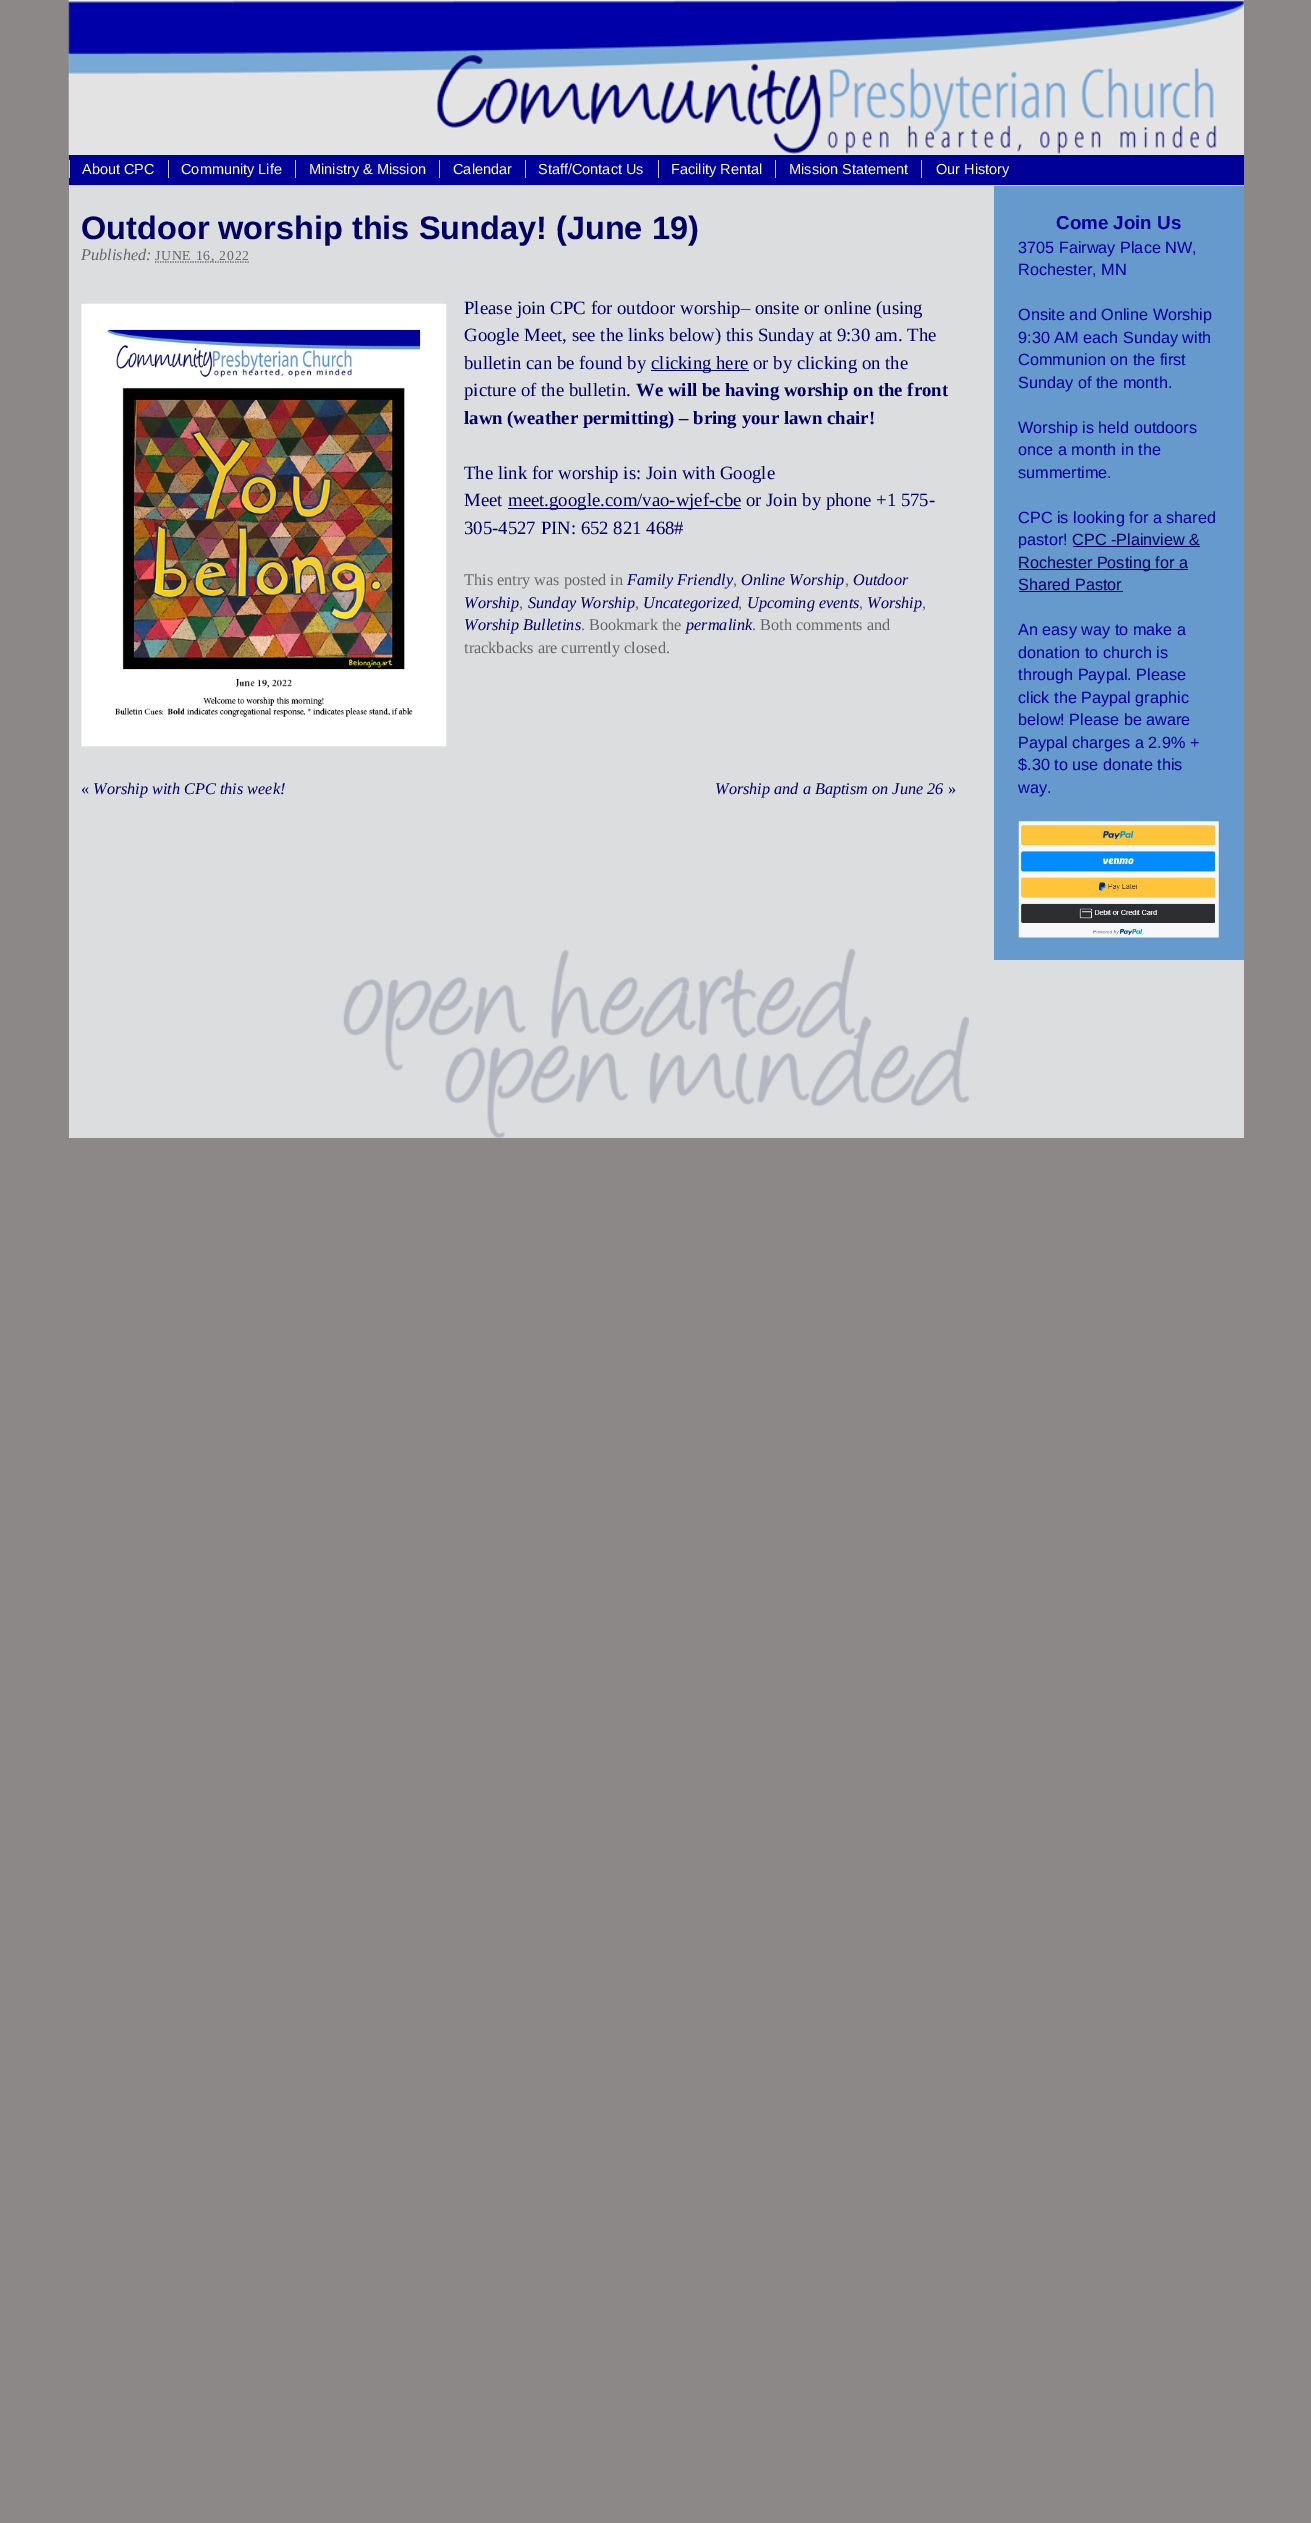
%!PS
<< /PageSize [1311 2523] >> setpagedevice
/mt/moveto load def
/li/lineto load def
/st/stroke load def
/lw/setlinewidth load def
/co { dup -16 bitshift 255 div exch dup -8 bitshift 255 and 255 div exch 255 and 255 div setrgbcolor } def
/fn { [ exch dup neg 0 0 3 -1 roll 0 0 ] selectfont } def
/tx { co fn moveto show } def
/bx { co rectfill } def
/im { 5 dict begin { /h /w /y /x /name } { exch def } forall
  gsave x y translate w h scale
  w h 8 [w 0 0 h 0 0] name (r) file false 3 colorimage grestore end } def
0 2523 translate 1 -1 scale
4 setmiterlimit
0 0 1311 2523 16#8D8888 bx
69 0 1175 1138 16#DCDDDE bx
(media/1.raw) 68 0 1176 155 im
69 155 1175 30 16#000099 bx
69 185 1175 1 16#CCCCCC bx
69 160 1 18 16#CCCCCC bx
168 160 1 18 16#CCCCCC bx
295 160 1 18 16#CCCCCC bx
439 160 1 18 16#CCCCCC bx
525 160 1 18 16#CCCCCC bx
658 160 1 18 16#CCCCCC bx
775 160 1 18 16#CCCCCC bx
921 160 1 18 16#CCCCCC bx
(media/2.raw) 343 948 626 190 im
16#666666 co
1.2 lw
[1.25 1.25] 0 setdash
155 262 mt 249 262 li st
(media/3.raw) 81 303 366 444 im
651 370 98 1 16#000066 bx
508 508 233 1 16#000066 bx
994 186 250 774 16#6699CC bx
1073 546 127 1 16#000066 bx
1019 569 169 1 16#000066 bx
1019 591 104 1 16#000066 bx
(media/4.raw) 1018 821 201 117 im
(About CPC) 82 174 /LiberationSans-Regular 14.5 16#FFFFFF tx
(Community Life) 181 174 /LiberationSans-Regular 14.5 16#FFFFFF tx
(Ministry & Mission) 309 174 /LiberationSans-Regular 14.5 16#FFFFFF tx
(Calendar) 453 174 /LiberationSans-Regular 14.5 16#FFFFFF tx
(Staff/Contact Us) 538 174 /LiberationSans-Regular 14.5 16#FFFFFF tx
(Facility Rental) 671 174 /LiberationSans-Regular 14.5 16#FFFFFF tx
(Mission Statement) 789 174 /LiberationSans-Regular 14.5 16#FFFFFF tx
(Our History) 936 174 /LiberationSans-Regular 14.5 16#FFFFFF tx
(Outdoor worship this Sunday! \(June 19\)) 81 239 /LiberationSans-Bold 32.5 16#000066 tx
(Published:) 81 260 /LiberationSerif-Italic 16.25 16#666666 tx
/LiberationSerif-Regular 13.75 fn
155 260 mt .75 0 (JUNE 16, 2022) ashow
(Please join CPC for outdoor worship– onsite or online \(using) 464 314 /LiberationSerif-Regular 18.75 16#000066 tx
(Google Meet, see the links below\) this Sunday at 9:30 am. The) 464 341 /LiberationSerif-Regular 18.75 16#000066 tx
(bulletin can be found by) 464 369 /LiberationSerif-Regular 18.75 16#000066 tx
(clicking here or by clicking on the) 651 369 /LiberationSerif-Regular 18.75 16#000066 tx
(picture of the bulletin.) 464 396 /LiberationSerif-Regular 18.75 16#000066 tx
(We will be having worship on the front) 636 396 /LiberationSerif-Bold 18.75 16#000066 tx
(lawn \(weather permitting\) – bring your lawn chair!) 464 424 /LiberationSerif-Bold 18.75 16#000066 tx
(The link for worship is: Join with Google) 464 479 /LiberationSerif-Regular 18.75 16#000066 tx
(Meet) 464 506 /LiberationSerif-Regular 18.75 16#000066 tx
(meet.google.com/vao-wjef-cbe or Join by phone +1 575-) 508 506 /LiberationSerif-Regular 18.75 16#000066 tx
(305-4527 PIN: 652 821 468#) 464 534 /LiberationSerif-Regular 18.75 16#000066 tx
(This entry was posted in) 464 585 /LiberationSerif-Regular 16.25 16#666666 tx
(Family Friendly) 627 585 /LiberationSerif-Italic 16.25 16#000066 tx
(,) 733 585 /LiberationSerif-Regular 16.25 16#666666 tx
(Online Worship) 741 585 /LiberationSerif-Italic 16.25 16#000066 tx
(,) 845 585 /LiberationSerif-Regular 16.25 16#666666 tx
(Outdoor) 853 585 /LiberationSerif-Italic 16.25 16#000066 tx
(Worship) 464 608 /LiberationSerif-Italic 16.25 16#000066 tx
(,) 519 608 /LiberationSerif-Regular 16.25 16#666666 tx
(Sunday Worship) 528 608 /LiberationSerif-Italic 16.25 16#000066 tx
(,) 635 608 /LiberationSerif-Regular 16.25 16#666666 tx
(Uncategorized) 643 608 /LiberationSerif-Italic 16.25 16#000066 tx
(,) 738 608 /LiberationSerif-Regular 16.25 16#666666 tx
(Upcoming events) 747 608 /LiberationSerif-Italic 16.25 16#000066 tx
(,) 859 608 /LiberationSerif-Regular 16.25 16#666666 tx
(Worship) 867 608 /LiberationSerif-Italic 16.25 16#000066 tx
(,) 922 608 /LiberationSerif-Regular 16.25 16#666666 tx
(Worship Bulletins) 464 630 /LiberationSerif-Italic 16.25 16#000066 tx
(. Bookmark the) 581 630 /LiberationSerif-Regular 16.25 16#666666 tx
(permalink) 686 630 /LiberationSerif-Italic 16.25 16#000066 tx
(. Both comments and) 752 630 /LiberationSerif-Regular 16.25 16#666666 tx
(trackbacks are currently closed.) 464 653 /LiberationSerif-Regular 16.25 16#666666 tx
(«) 81 794 /LiberationSerif-Regular 16.25 16#000066 tx
(Worship with CPC this week!) 93 794 /LiberationSerif-Italic 16.25 16#000066 tx
(Worship and a Baptism on June 26) 715 794 /LiberationSerif-Italic 16.25 16#000066 tx
(») 948 794 /LiberationSerif-Regular 16.25 16#000066 tx
(Come Join Us) 1056 229 /LiberationSans-Bold 18.75 16#000099 tx
(3705 Fairway Place NW,) 1018 253 /LiberationSans-Regular 16.25 16#000099 tx
(Rochester, MN) 1018 275 /LiberationSans-Regular 16.25 16#000099 tx
(Onsite and Online Worship) 1018 320 /LiberationSans-Regular 16.25 16#000099 tx
(9:30 AM each Sunday with) 1018 343 /LiberationSans-Regular 16.25 16#000099 tx
(Communion on the first) 1018 365 /LiberationSans-Regular 16.25 16#000099 tx
(Sunday of the month.) 1018 388 /LiberationSans-Regular 16.25 16#000099 tx
(Worship is held outdoors) 1018 433 /LiberationSans-Regular 16.25 16#000099 tx
(once a month in the) 1018 455 /LiberationSans-Regular 16.25 16#000099 tx
(summertime.) 1018 478 /LiberationSans-Regular 16.25 16#000099 tx
(CPC is looking for a shared) 1018 523 /LiberationSans-Regular 16.25 16#000099 tx
(pastor!) 1018 545 /LiberationSans-Regular 16.25 16#000099 tx
(CPC -Plainview &) 1072 545 /LiberationSans-Regular 16.25 16#000066 tx
(Rochester Posting for a) 1018 568 /LiberationSans-Regular 16.25 16#000066 tx
(Shared Pastor) 1018 590 /LiberationSans-Regular 16.25 16#000066 tx
(An easy way to make a) 1018 635 /LiberationSans-Regular 16.25 16#000099 tx
(donation to church is) 1018 658 /LiberationSans-Regular 16.25 16#000099 tx
(through Paypal. Please) 1018 680 /LiberationSans-Regular 16.25 16#000099 tx
(click the Paypal graphic) 1018 703 /LiberationSans-Regular 16.25 16#000099 tx
(below! Please be aware) 1018 725 /LiberationSans-Regular 16.25 16#000099 tx
(Paypal charges a 2.9% +) 1018 748 /LiberationSans-Regular 16.25 16#000099 tx
($.30 to use donate this) 1018 770 /LiberationSans-Regular 16.25 16#000099 tx
(way.) 1018 793 /LiberationSans-Regular 16.25 16#000099 tx
showpage
